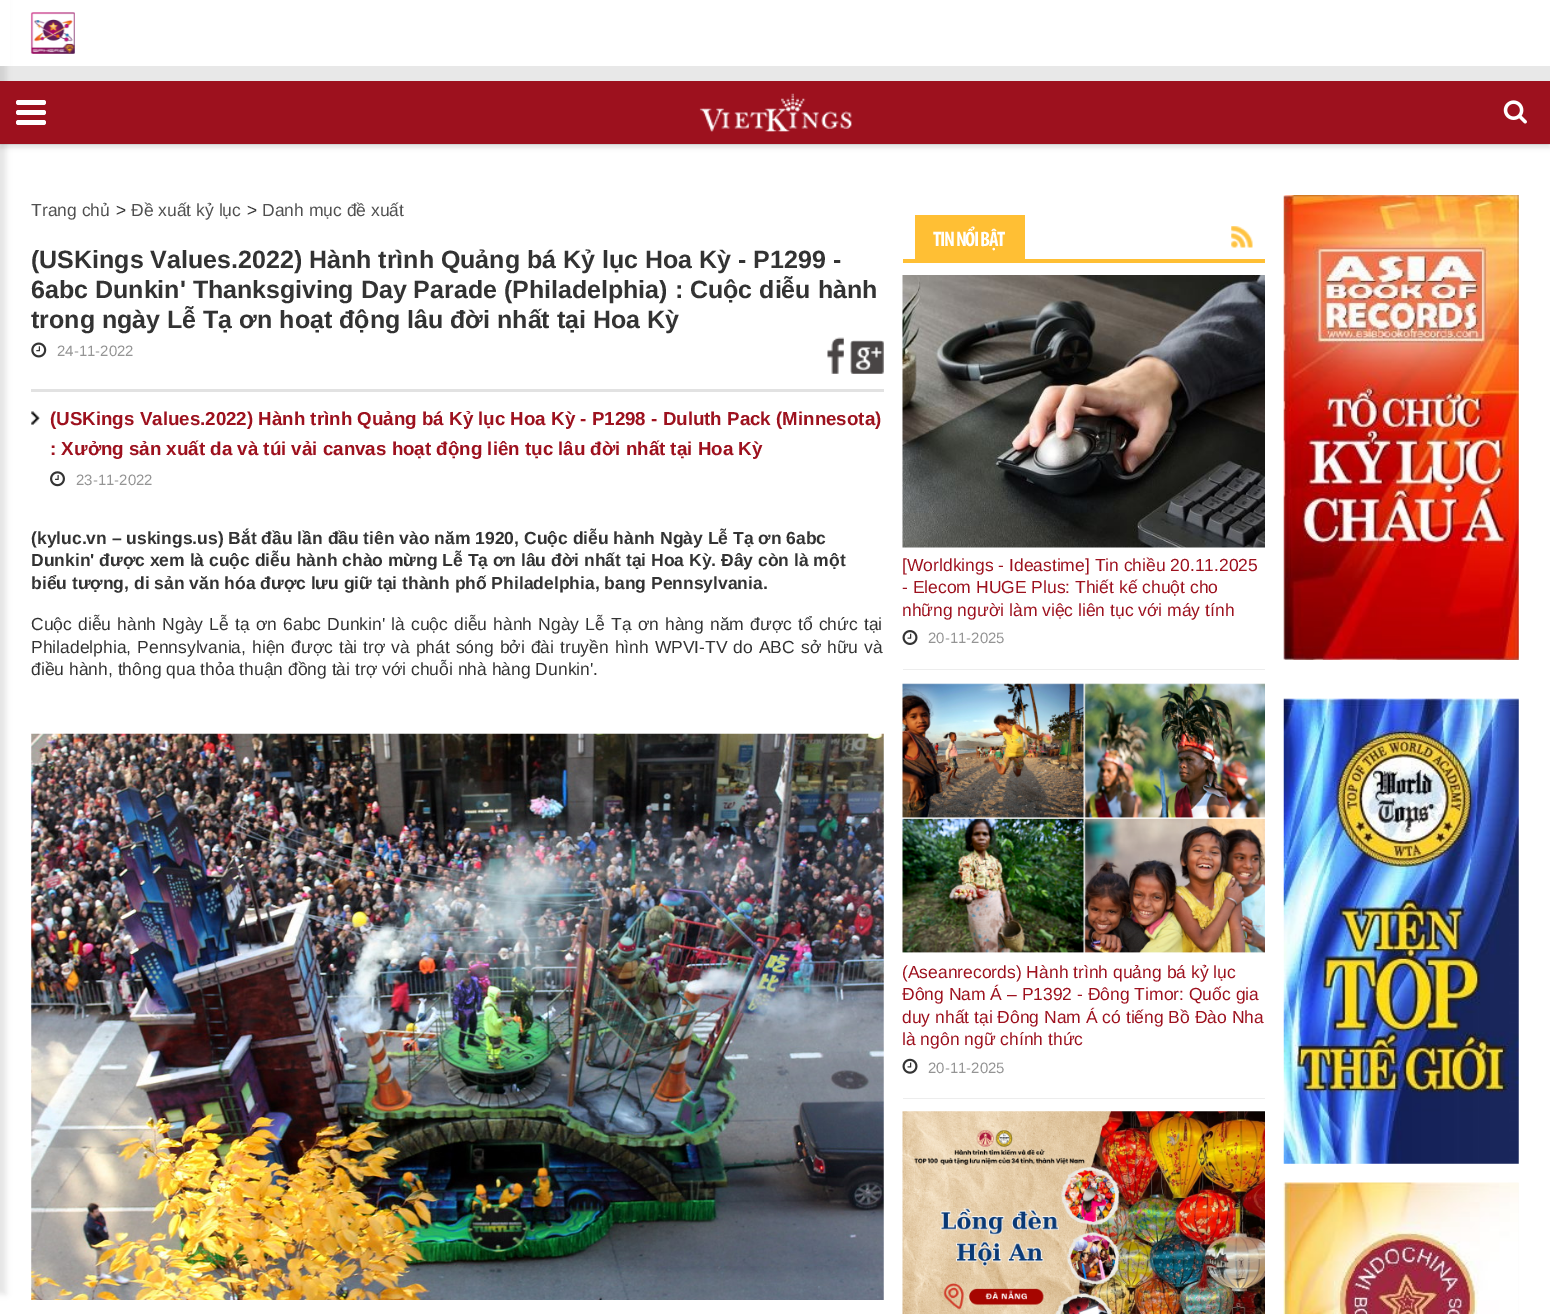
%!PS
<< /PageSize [1550 1314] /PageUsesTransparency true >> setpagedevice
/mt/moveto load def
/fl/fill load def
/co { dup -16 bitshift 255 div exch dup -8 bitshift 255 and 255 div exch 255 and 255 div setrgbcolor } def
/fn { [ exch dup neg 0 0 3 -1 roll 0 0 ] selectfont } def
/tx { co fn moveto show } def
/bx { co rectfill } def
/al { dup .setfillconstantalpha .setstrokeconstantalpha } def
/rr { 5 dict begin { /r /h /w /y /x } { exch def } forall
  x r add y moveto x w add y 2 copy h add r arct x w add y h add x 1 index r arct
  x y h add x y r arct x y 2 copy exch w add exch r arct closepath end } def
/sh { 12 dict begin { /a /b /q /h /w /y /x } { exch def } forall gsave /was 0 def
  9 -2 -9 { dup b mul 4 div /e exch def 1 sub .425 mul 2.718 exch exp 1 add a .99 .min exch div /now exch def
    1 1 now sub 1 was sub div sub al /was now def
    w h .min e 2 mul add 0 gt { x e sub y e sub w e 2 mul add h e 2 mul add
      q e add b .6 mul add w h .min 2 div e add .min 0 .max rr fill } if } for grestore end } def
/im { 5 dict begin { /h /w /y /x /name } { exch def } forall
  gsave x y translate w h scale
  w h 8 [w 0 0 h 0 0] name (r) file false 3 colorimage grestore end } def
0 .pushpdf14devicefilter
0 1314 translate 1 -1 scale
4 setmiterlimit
0 0 1550 1314 16#FFFFFF bx
(media/1.raw) 0 66 1550 79 im
16#000000 co
-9 -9 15 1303 0 3 .1 sh
0 85 1550 63 0 2 .1 sh
0 81 1550 63 16#9D111E bx
(media/2.raw) 699 93 153 39 im
16#FFFFFF co
16 110 30 5 2.5 rr fl
16 100 30 5 2.5 rr fl
16 120 30 5 2.5 rr fl
0 0 10 66 16#FFFFFF bx
(media/3.raw) 30 12 45 42 im
(media/4.raw) 1503 100 24 24 im
31 389 853 3 16#E2E2E2 bx
(media/5.raw) 31 342 16 16 im
(media/6.raw) 827 337 17 37 im
(media/7.raw) 850 340 34 34 im
(media/8.raw) 31 411 9 14 im
(media/9.raw) 50 471 15 16 im
(media/10.raw) 31 733 853 567 im
903 259 362 4 16#FFBF34 bx
915 215 110 44 16#FFBF34 bx
(media/11.raw) 1231 226 22 22 im
903 669 362 1 16#EDEDED bx
(media/12.raw) 902 275 363 273 im
(media/13.raw) 902 630 16 15 im
903 1098 362 1 16#EDEDED bx
(media/14.raw) 902 683 363 270 im
(media/15.raw) 902 1058 16 16 im
(media/16.raw) 902 1111 363 203 im
(media/17.raw) 1283 195 236 465 im
1284 699 235 465 16#F8F8F8 bx
(media/18.raw) 1283 698 236 466 im
(media/19.raw) 1283 1182 236 132 im
(Trang chủ) 31 216 /LiberationSans-Regular 17.5 16#505050 tx
(>) 116 216 /LiberationSans-Regular 17.5 16#333333 tx
(Đề xuất kỷ lục) 131 216 /LiberationSans-Regular 17.5 16#505050 tx
(>) 247 216 /LiberationSans-Regular 17.5 16#333333 tx
(Danh mục đề xuất) 262 216 /LiberationSans-Regular 17.5 16#505050 tx
(\(USKings Values.2022\) Hành trình Quảng bá Kỷ lục Hoa Kỳ - P1299 -) 31 268 /LiberationSans-Bold 25 16#333333 tx
(6abc Dunkin' Thanksgiving Day Parade \(Philadelphia\) : Cuộc diễu hành) 31 298 /LiberationSans-Bold 25 16#333333 tx
(trong ngày Lễ Tạ ơn hoạt động lâu đời nhất tại Hoa Kỳ) 31 328 /LiberationSans-Bold 25 16#333333 tx
(24-11-2022) 57 356 /LiberationSans-Regular 15 16#949494 tx
(\(USKings Values.2022\) Hành trình Quảng bá Kỷ lục Hoa Kỳ - P1298 - Duluth Pack \(Minnesota\)) 50 425 /LiberationSans-Bold 18.75 16#9D111E tx
(: Xưởng sản xuất da và túi vải canvas hoạt động liên tục lâu đời nhất tại Hoa Kỳ) 50 455 /LiberationSans-Bold 18.75 16#9D111E tx
(23-11-2022) 76 485 /LiberationSans-Regular 15 16#949494 tx
(\(kyluc.vn – uskings.us\) Bắt đầu lần đầu tiên vào năm 1920, Cuộc diễu hành Ngày Lễ Tạ ơn 6abc) 31 544 /LiberationSans-Bold 17.5 16#333333 tx
(Dunkin' được xem là cuộc diễu hành chào mừng Lễ Tạ ơn lâu đời nhất tại Hoa Kỳ. Đây còn là một) 31 566 /LiberationSans-Bold 17.5 16#333333 tx
(biểu tượng, di sản văn hóa được lưu giữ tại thành phố Philadelphia, bang Pennsylvania.) 31 589 /LiberationSans-Bold 17.5 16#333333 tx
/LiberationSans-Regular 17.5 fn
31 630 mt 1.3 0 32 (Cuộc diễu hành Ngày Lễ tạ ơn 6abc Dunkin' là cuộc diễu hành Ngày Lễ Tạ ơn hàng năm được tổ chức tại) widthshow
31 653 mt 1.1 0 32 (Philadelphia, Pennsylvania, hiện được tài trợ và phát sóng bởi đài truyền hình WPVI-TV do ABC sở hữu và) widthshow
(điều hành, thông qua thỏa thuận đồng tài trợ với chuỗi nhà hàng Dunkin'.) 31 675 /LiberationSans-Regular 17.5 16#333333 tx
/Myriad-Bold 21 fn
16#FFFFFF co
933 246 mt -1.25 0 (TIN NỔI BẬT) ashow
([Worldkings - Ideastime] Tin chiều 20.11.2025) 902 571 /LiberationSans-Regular 17.5 16#9D111E tx
(- Elecom HUGE Plus: Thiết kế chuột cho) 902 593 /LiberationSans-Regular 17.5 16#9D111E tx
(những người làm việc liên tục với máy tính) 902 616 /LiberationSans-Regular 17.5 16#9D111E tx
(20-11-2025) 928 643 /LiberationSans-Regular 15 16#949494 tx
(\(Aseanrecords\) Hành trình quảng bá kỷ lục) 902 978 /LiberationSans-Regular 17.5 16#9D111E tx
(Đông Nam Á – P1392 - Đông Timor: Quốc gia) 902 1000 /LiberationSans-Regular 17.5 16#9D111E tx
(duy nhất tại Đông Nam Á có tiếng Bồ Đào Nha) 902 1023 /LiberationSans-Regular 17.5 16#9D111E tx
(là ngôn ngữ chính thức) 902 1045 /LiberationSans-Regular 17.5 16#9D111E tx
(20-11-2025) 928 1073 /LiberationSans-Regular 15 16#949494 tx
.poppdf14devicefilter showpage
